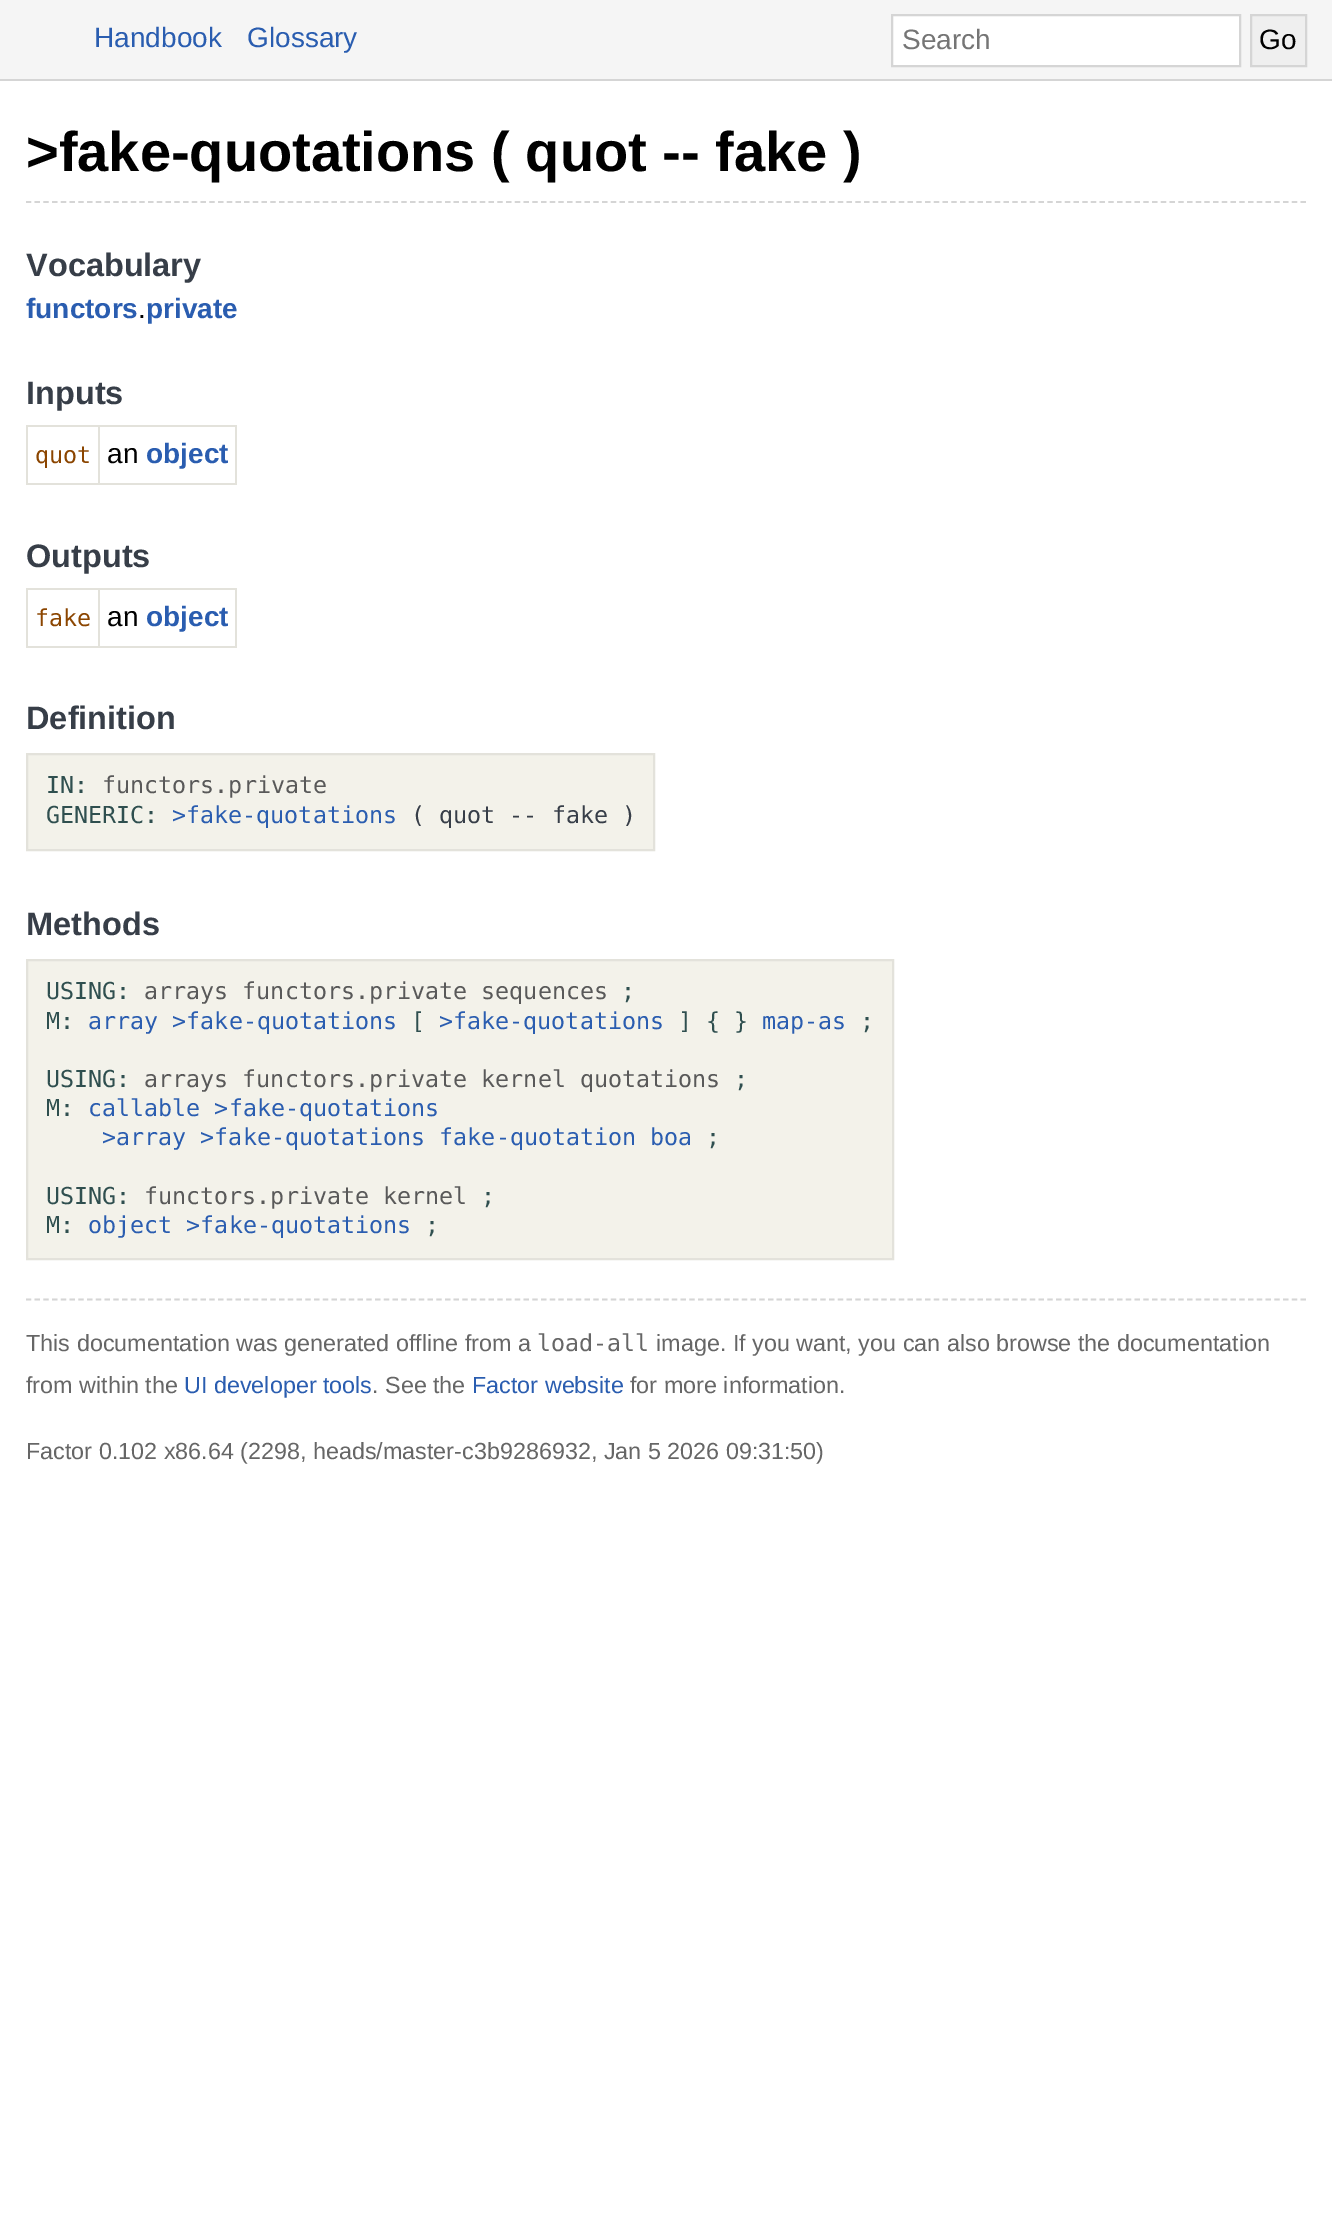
%!PS
<< /PageSize [1332 2214] >> setpagedevice
/mt/moveto load def
/li/lineto load def
/cp/closepath load def
/fl/fill load def
/st/stroke load def
/gs/gsave load def
/gr/grestore load def
/lw/setlinewidth load def
/co { dup -16 bitshift 255 div exch dup -8 bitshift 255 and 255 div exch 255 and 255 div setrgbcolor } def
/fn { [ exch dup neg 0 0 3 -1 roll 0 0 ] selectfont } def
/tx { co fn moveto show } def
/bx { co rectfill } def
0 2214 translate 1 -1 scale
4 setmiterlimit
0 0 1332 2214 16#FFFFFF bx
0 0 1332 79 16#F5F5F5 bx
0 79 1332 2 16#D5D5D5 bx
16#FFFFFF co
892 15 mt 1240 15 li 1240 66 li 892 66 li cp gs fl gr
16#D5D5D5 co
2 lw
st
16#EFEFEF co
1251 15 mt 1306 15 li 1306 66 li 1251 66 li cp gs fl gr
16#D5D5D5 co
st
1.8 lw
[5.25 3.48] 0 setdash
26 202 mt 1307 202 li st
98 425 138 2 16#E3E2DB bx
235 425 2 60 16#E3E2DB bx
98 483 138 2 16#E3E2DB bx
98 425 2 60 16#E3E2DB bx
26 425 74 2 16#E3E2DB bx
26 483 74 2 16#E3E2DB bx
26 425 2 60 16#E3E2DB bx
98 588 138 2 16#E3E2DB bx
235 588 2 60 16#E3E2DB bx
98 646 138 2 16#E3E2DB bx
98 588 2 60 16#E3E2DB bx
26 588 74 2 16#E3E2DB bx
26 646 74 2 16#E3E2DB bx
26 588 2 60 16#E3E2DB bx
16#F3F2EA co
27 754 mt 654 754 li 654 850 li 27 850 li cp gs fl gr
16#E3E2DB co
2 lw
[] 0 setdash
st
16#F3F2EA co
27 960 mt 893 960 li 893 1259 li 27 1259 li cp gs fl gr
16#E3E2DB co
st
16#D5D5D5 co
1.8 lw
[5.25 3.48] 0 setdash
26 1299.5 mt 1307 1299.5 li st
(Handbook) 94 47 /LiberationSans-Regular 28 16#2A5DB0 tx
(Glossary) 247 47 /LiberationSans-Regular 28 16#2A5DB0 tx
(Search) 902 49 /LiberationSans-Regular 28 16#757575 tx
(Go) 1259 49 /LiberationSans-Regular 28 16#000000 tx
(>fake-quotations \( quot -- fake \)) 26 171 /LiberationSans-Bold 56 16#000000 tx
(Vocabulary) 26 276 /LiberationSans-Bold 32.5 16#373E48 tx
(functors private) 26 318 /LiberationSans-Bold 28 16#2A5DB0 tx
(.) 138 318 /LiberationSans-Regular 28 16#000000 tx
(Inputs) 26 404 /LiberationSans-Bold 32.5 16#373E48 tx
(quot) 35 463 /DejaVuSansMono-Regular 23.35 16#8B4500 tx
(an) 107 463 /LiberationSans-Regular 28 16#000000 tx
(object) 146 463 /LiberationSans-Bold 28 16#2A5DB0 tx
(Outputs) 26 567 /LiberationSans-Bold 32.5 16#373E48 tx
(fake) 35 626 /DejaVuSansMono-Regular 23.35 16#8B4500 tx
(an) 107 626 /LiberationSans-Regular 28 16#000000 tx
(object) 146 626 /LiberationSans-Bold 28 16#2A5DB0 tx
(Definition) 26 729 /LiberationSans-Bold 32.5 16#373E48 tx
(IN:) 46 793 /DejaVuSansMono-Regular 23.35 16#2F4F4F tx
(functors.private) 102 793 /DejaVuSansMono-Regular 23.35 16#595959 tx
(GENERIC:) 46 823 /DejaVuSansMono-Regular 23.35 16#2F4F4F tx
(>fake-quotations) 172 823 /DejaVuSansMono-Regular 23.35 16#2A5DB0 tx
(\( quot -- fake \)) 411 823 /DejaVuSansMono-Regular 23.35 16#373E48 tx
(Methods) 26 935 /LiberationSans-Bold 32.5 16#373E48 tx
(USING:) 46 999 /DejaVuSansMono-Regular 23.35 16#2F4F4F tx
(arrays functors.private sequences) 144 999 /DejaVuSansMono-Regular 23.35 16#595959 tx
(;) 621 999 /DejaVuSansMono-Regular 23.35 16#2F4F4F tx
(M:) 46 1029 /DejaVuSansMono-Regular 23.35 16#2F4F4F tx
(array >fake-quotations) 88 1029 /DejaVuSansMono-Regular 23.35 16#2A5DB0 tx
([) 411 1029 /DejaVuSansMono-Regular 23.35 16#2F4F4F tx
(>fake-quotations) 439 1029 /DejaVuSansMono-Regular 23.35 16#2A5DB0 tx
(] { }) 678 1029 /DejaVuSansMono-Regular 23.35 16#2F4F4F tx
(map-as) 762 1029 /DejaVuSansMono-Regular 23.35 16#2A5DB0 tx
(;) 860 1029 /DejaVuSansMono-Regular 23.35 16#2F4F4F tx
(USING:) 46 1087 /DejaVuSansMono-Regular 23.35 16#2F4F4F tx
(arrays functors.private kernel quotations) 144 1087 /DejaVuSansMono-Regular 23.35 16#595959 tx
(;) 734 1087 /DejaVuSansMono-Regular 23.35 16#2F4F4F tx
(M:) 46 1116 /DejaVuSansMono-Regular 23.35 16#2F4F4F tx
(callable >fake-quotations) 88 1116 /DejaVuSansMono-Regular 23.35 16#2A5DB0 tx
(>array >fake-quotations fake-quotation boa) 102 1145 /DejaVuSansMono-Regular 23.35 16#2A5DB0 tx
(;) 706 1145 /DejaVuSansMono-Regular 23.35 16#2F4F4F tx
(USING:) 46 1204 /DejaVuSansMono-Regular 23.35 16#2F4F4F tx
(functors.private kernel) 144 1204 /DejaVuSansMono-Regular 23.35 16#595959 tx
(;) 481 1204 /DejaVuSansMono-Regular 23.35 16#2F4F4F tx
(M:) 46 1233 /DejaVuSansMono-Regular 23.35 16#2F4F4F tx
(object >fake-quotations) 88 1233 /DejaVuSansMono-Regular 23.35 16#2A5DB0 tx
(;) 425 1233 /DejaVuSansMono-Regular 23.35 16#2F4F4F tx
(This documentation was generated offline from a) 26 1351 /LiberationSans-Regular 23.35 16#666666 tx
(load-all) 537 1351 /DejaVuSansMono-Regular 23.35 16#666666 tx
(image. If you want, you can also browse the documentation) 656 1351 /LiberationSans-Regular 23.35 16#666666 tx
(from within the) 26 1393 /LiberationSans-Regular 23.35 16#666666 tx
(UI developer tools) 184 1393 /LiberationSans-Regular 23.35 16#2A5DB0 tx
(. See the) 372 1393 /LiberationSans-Regular 23.35 16#666666 tx
(Factor website) 472 1393 /LiberationSans-Regular 23.35 16#2A5DB0 tx
(for more information.) 630 1393 /LiberationSans-Regular 23.35 16#666666 tx
(Factor 0.102 x86.64 \(2298, heads/master-c3b9286932, Jan 5 2026 09:31:50\)) 26 1459 /LiberationSans-Regular 23.35 16#666666 tx
showpage
